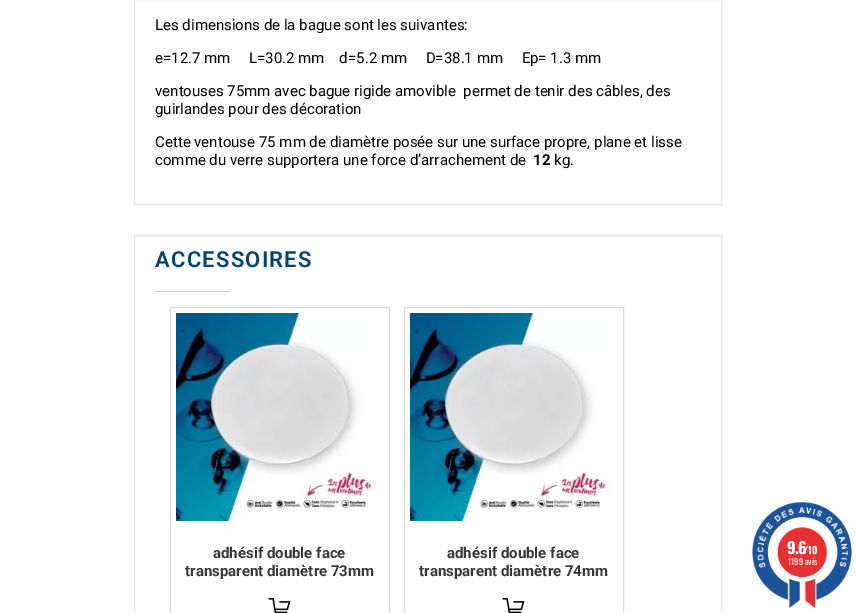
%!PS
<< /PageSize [856 613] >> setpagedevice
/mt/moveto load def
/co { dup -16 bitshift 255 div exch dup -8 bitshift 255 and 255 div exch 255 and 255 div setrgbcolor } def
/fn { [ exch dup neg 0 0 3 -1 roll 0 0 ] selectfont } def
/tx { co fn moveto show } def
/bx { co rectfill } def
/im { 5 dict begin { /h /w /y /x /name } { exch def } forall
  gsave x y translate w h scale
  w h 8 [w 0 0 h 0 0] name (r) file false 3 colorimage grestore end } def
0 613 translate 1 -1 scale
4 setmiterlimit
0 0 856 613 16#FFFFFF bx
16#E6E6E6 co
134.5 -.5 587 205 rectstroke
134.5 235.5 587 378 rectstroke
155 291 75 1 16#CCCCCC bx
16#DADADA co
170.5 307.5 219 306 rectstroke
(media/1.raw) 176 313 200 208 im
(media/2.raw) 268 598 23 15 im
404.5 307.5 219 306 rectstroke
(media/3.raw) 410 313 200 208 im
(media/2.raw) 502 598 23 15 im
(media/4.raw) 752 502 100 107 im
(Les dimensions de la bague sont les suivantes:) 155 30 /Roboto-Regular 15 16#000000 tx
(e=12.7 mm     L=30.2 mm    d=5.2 mm     D=38.1 mm     Ep= 1.3 mm) 155 63 /Roboto-Regular 15 16#000000 tx
(ventouses 75mm avec bague rigide amovible  permet de tenir des câbles, des) 155 96 /Roboto-Regular 15 16#000000 tx
(guirlandes pour des décoration) 155 114 /Roboto-Regular 15 16#000000 tx
(Cette ventouse 75 mm de diamètre posée sur une surface propre, plane et lisse) 155 147 /Roboto-Regular 15 16#000000 tx
(comme du verre supportera une force d’arrachement de) 155 165 /Roboto-Regular 15 16#000000 tx
(12) 533 165 /Roboto-Bold 15 16#000000 tx
(kg.) 554 165 /Roboto-Regular 15 16#000000 tx
/Roboto-SemiBold 22 fn
16#004377 co
155 267 mt 1.25 0 (ACCESSOIRES) ashow
(adhésif double face) 213 558 /Roboto-Bold 15 16#3A3939 tx
(transparent diamètre 73mm) 185 576 /Roboto-Bold 15 16#3A3939 tx
(adhésif double face) 447 558 /Roboto-Bold 15 16#3A3939 tx
(transparent diamètre 74mm) 419 576 /Roboto-Bold 15 16#3A3939 tx
/Oswald-Bold 16 fn
16#FFFFFF co
787 554 mt -1 0 (9.6) ashow
(/10) 804 554 /Oswald-Bold 10 16#FFFFFF tx
(1199 avis) 788 565 /Oswald-Regular 8.5 16#FFFFFF tx
showpage
